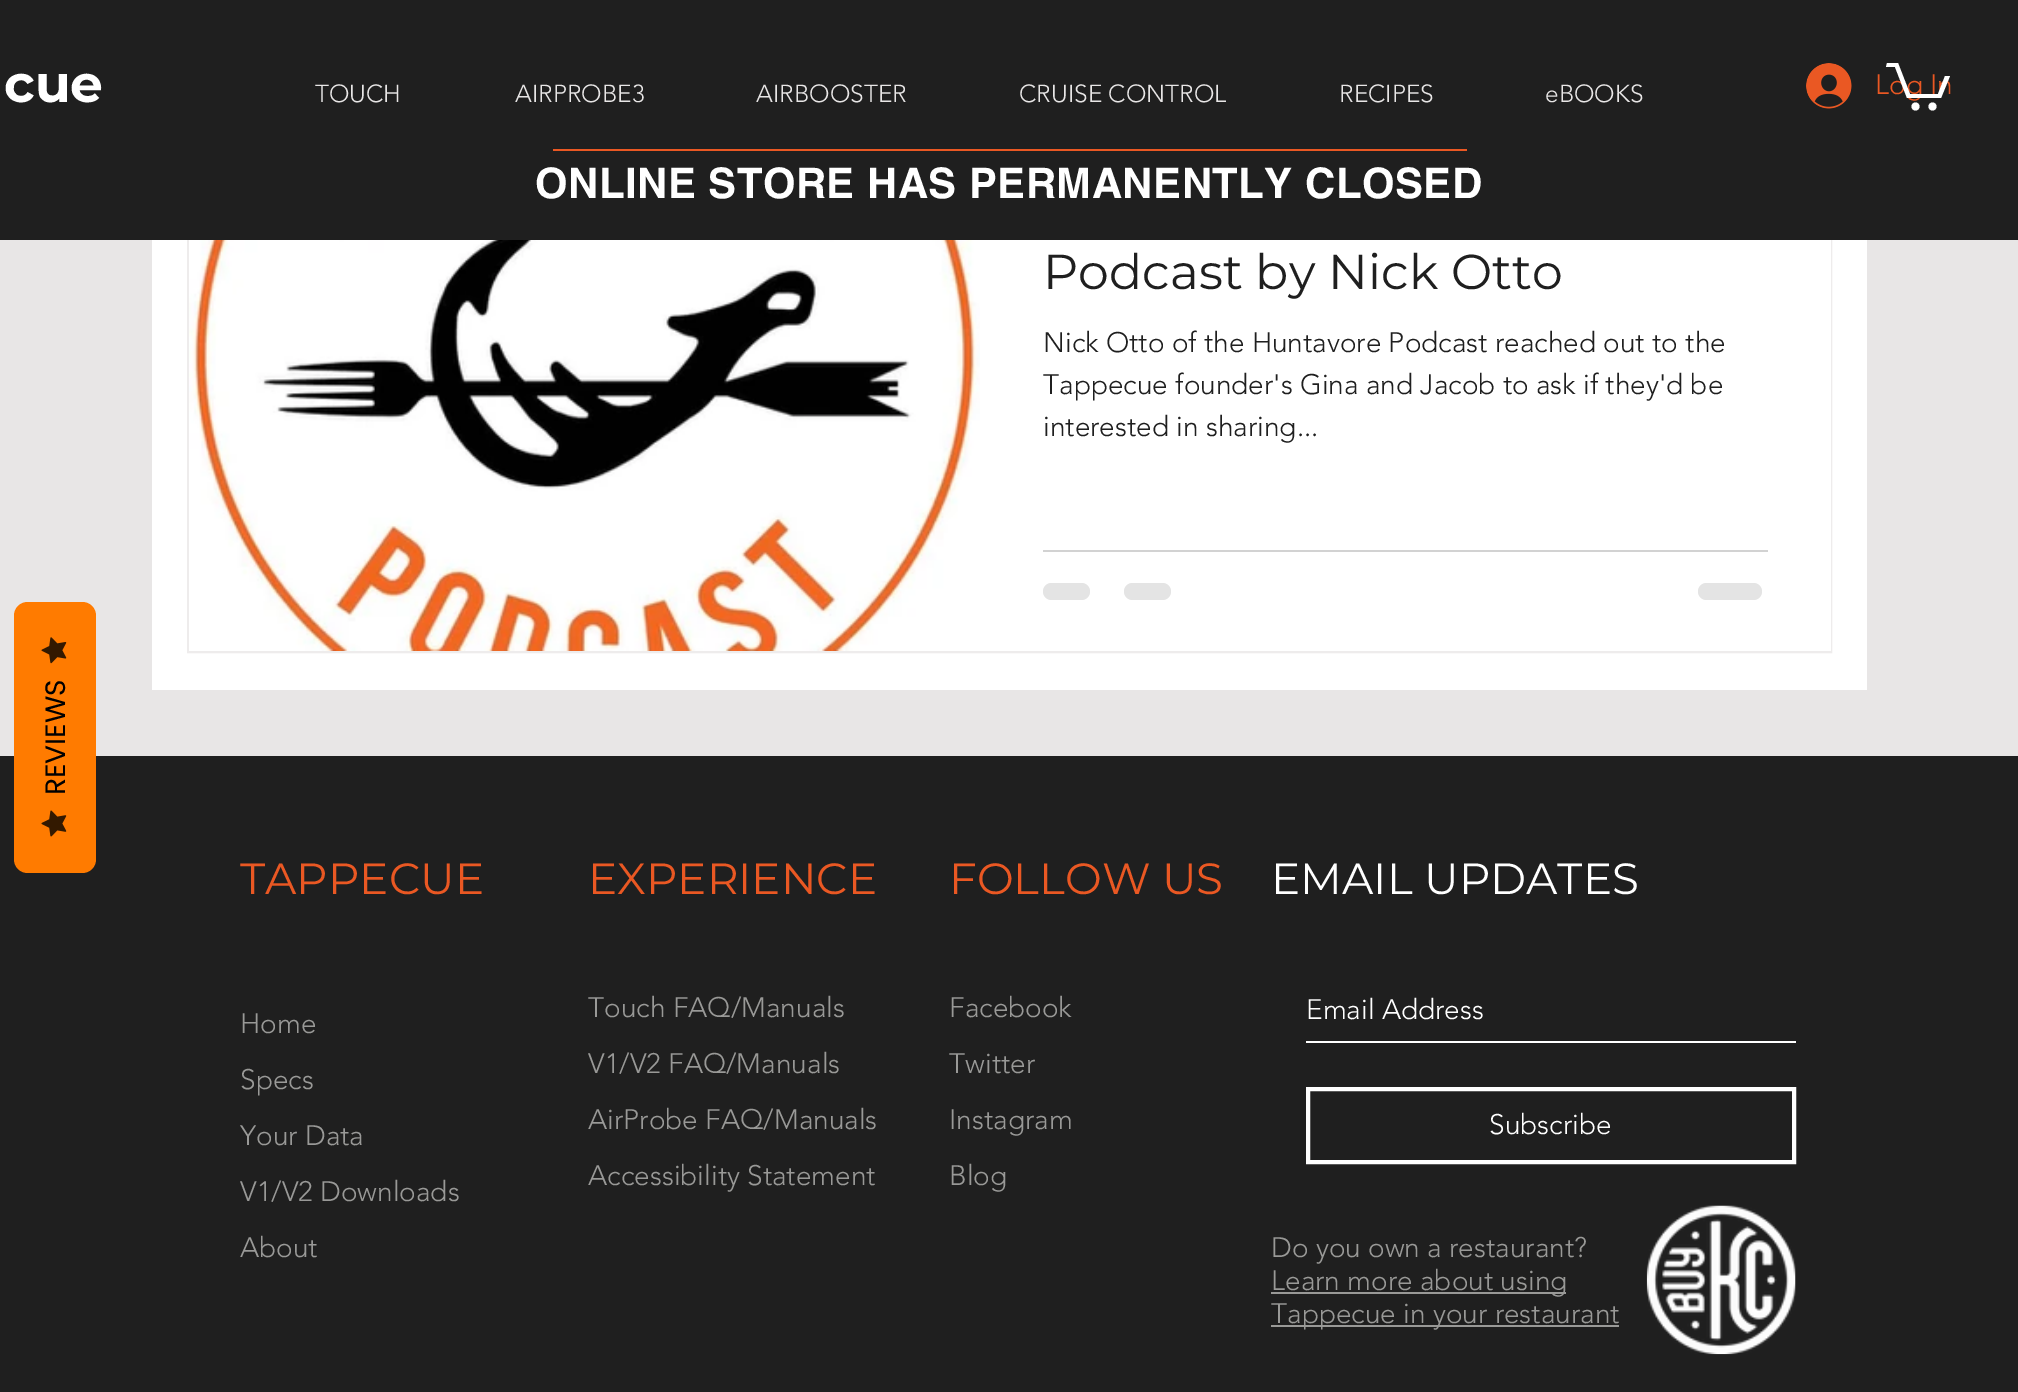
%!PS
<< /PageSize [2018 1392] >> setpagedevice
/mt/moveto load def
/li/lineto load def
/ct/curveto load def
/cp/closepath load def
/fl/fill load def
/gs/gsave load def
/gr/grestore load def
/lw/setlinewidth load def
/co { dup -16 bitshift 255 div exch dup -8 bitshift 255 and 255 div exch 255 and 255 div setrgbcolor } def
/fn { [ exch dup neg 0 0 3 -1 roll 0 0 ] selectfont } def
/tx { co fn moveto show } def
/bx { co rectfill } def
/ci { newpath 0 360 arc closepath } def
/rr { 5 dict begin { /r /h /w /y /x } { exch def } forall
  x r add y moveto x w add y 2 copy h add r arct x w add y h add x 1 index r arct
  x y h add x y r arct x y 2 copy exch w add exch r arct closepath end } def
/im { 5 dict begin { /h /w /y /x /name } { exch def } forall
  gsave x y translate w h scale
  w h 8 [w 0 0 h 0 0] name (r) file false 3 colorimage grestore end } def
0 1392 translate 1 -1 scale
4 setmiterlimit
0 0 2018 1392 16#E8E6E6 bx
152 240 1715 450 16#FFFFFF bx
16#EEECEC co
2 lw
188 57 1643 595 rectstroke
0 0 2018 240 16#1F1F1F bx
16#FFFFFF co
1932.5 106.5 4 ci fl
1915.5 106.5 4 ci fl
(media/1.raw) 1806 63 46 46 im
553 149 914 2 16#EA5823 bx
(media/2.raw) 189 240 791 411 im
1830 240 1 411 16#FFFFFF bx
1043 550 725 2 16#D2D2D2 bx
16#E4E4E4 co
1043 583 47 17 8.5 rr fl
1124 583 47 17 8.5 rr fl
1698 583 64 17 8.5 rr fl
0 756 2018 636 16#1F1F1F bx
1306 1041 490 2 16#FFFFFF bx
4 lw
1308 1089 486 73 rectstroke
1271 1292 295 2 16#999997 bx
1271 1325 348 2 16#999997 bx
(media/3.raw) 1646 1205 150 150 im
16#FF7B00 co
14 859 mt 14 616 li 14 608 20 602 28 602 ct 82 602 li 90 602 96 608 96 616 ct 96 859 li 96 867 90 873 82 873 ct 28 873 li 20 873 14 867 14 859 ct cp fl
(media/4.raw) 41 637 26 27 im
(media/5.raw) 41 810 26 27 im
(cue) 4 102 /Montserrat-Bold 52 16#FFFFFF tx
(TOUCH) 315 102 /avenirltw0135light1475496-Light 24.5 16#E8E6E6 tx
(AIRPROBE3) 515 102 /avenirltw0135light1475496-Light 24.5 16#E8E6E6 tx
(AIRBOOSTER) 756 102 /avenirltw0135light1475496-Light 24.5 16#E8E6E6 tx
(CRUISE CONTROL) 1019 102 /avenirltw0135light1475496-Light 24.5 16#E8E6E6 tx
(RECIPES) 1339 102 /avenirltw0135light1475496-Light 24.5 16#E8E6E6 tx
(eBOOKS) 1545 102 /avenirltw0135light1475496-Light 24.5 16#E8E6E6 tx
(Log In) 1875 94 /avenirltw0135light1475496-Light 28 16#EA5823 tx
16#FFFFFF co
1950 76 mt 1941 98 li 1907 98 li 1895 67 li 1886 67 li 1887 63 li 1898 63 li 1910 94 li 1938 94 li 1945 76 li fl
/helvetica-Bold 42 fn
535 198 mt .4 0 (ONLINE STORE HAS PERMANENTLY CLOSED) ashow
(Podcast by Nick Otto) 1043 289 /Montserrat-Regular 49 16#1F1F1F tx
(Nick Otto of the Huntavore Podcast reached out to the) 1043 352 /avenirltw0135light1475496-Light 28 16#1F1F1F tx
(Tappecue founder's Gina and Jacob to ask if they'd be) 1043 394 /avenirltw0135light1475496-Light 28 16#1F1F1F tx
(interested in sharing...) 1043 436 /avenirltw0135light1475496-Light 28 16#1F1F1F tx
(TAPPECUE) 240 894 /Montserrat-Regular 43.75 16#EA5823 tx
(EXPERIENCE) 588 894 /Montserrat-Regular 43.75 16#EA5823 tx
(FOLLOW US) 949 894 /Montserrat-Regular 43.75 16#EA5823 tx
(EMAIL UPDATES) 1271 894 /Montserrat-Regular 43.75 16#FFFFFF tx
(Home) 240 1033 /avenirltw0135light1475496-Light 28 16#999997 tx
(Specs) 240 1089 /avenirltw0135light1475496-Light 28 16#999997 tx
(Your Data) 240 1145 /avenirltw0135light1475496-Light 28 16#999997 tx
(V1/V2 Downloads) 240 1201 /avenirltw0135light1475496-Light 28 16#999997 tx
(About) 240 1257 /avenirltw0135light1475496-Light 28 16#999997 tx
(Touch FAQ/Manuals) 588 1017 /avenirltw0135light1475496-Light 28 16#999997 tx
(V1/V2 FAQ/Manuals) 588 1073 /avenirltw0135light1475496-Light 28 16#999997 tx
(AirProbe FAQ/Manuals) 588 1129 /avenirltw0135light1475496-Light 28 16#999997 tx
(Accessibility Statement) 588 1185 /avenirltw0135light1475496-Light 28 16#999997 tx
(Facebook) 949 1017 /avenirltw0135light1475496-Light 28 16#999997 tx
(Twitter) 949 1073 /avenirltw0135light1475496-Light 28 16#999997 tx
(Instagram) 949 1129 /avenirltw0135light1475496-Light 28 16#999997 tx
(Blog) 949 1185 /avenirltw0135light1475496-Light 28 16#999997 tx
(Email Address) 1306 1019 /avenirltw0135light1475496-Light 28 16#FFFFFF tx
(Subscribe) 1489 1134 /avenirltw0135light1475496-Light 28 16#FFFFFF tx
(Do you own a restaurant?) 1271 1257 /avenirltw0135light1475496-Light 28 16#999997 tx
(Learn more about using) 1271 1290 /avenirltw0135light1475496-Light 28 16#999997 tx
(Tappecue in your restaurant) 1271 1323 /avenirltw0135light1475496-Light 28 16#999997 tx
/Poppins-Regular 28 fn
16#000000 co
gs 65 795 translate -90 rotate 0 0 mt (REVIEWS) show gr
showpage
